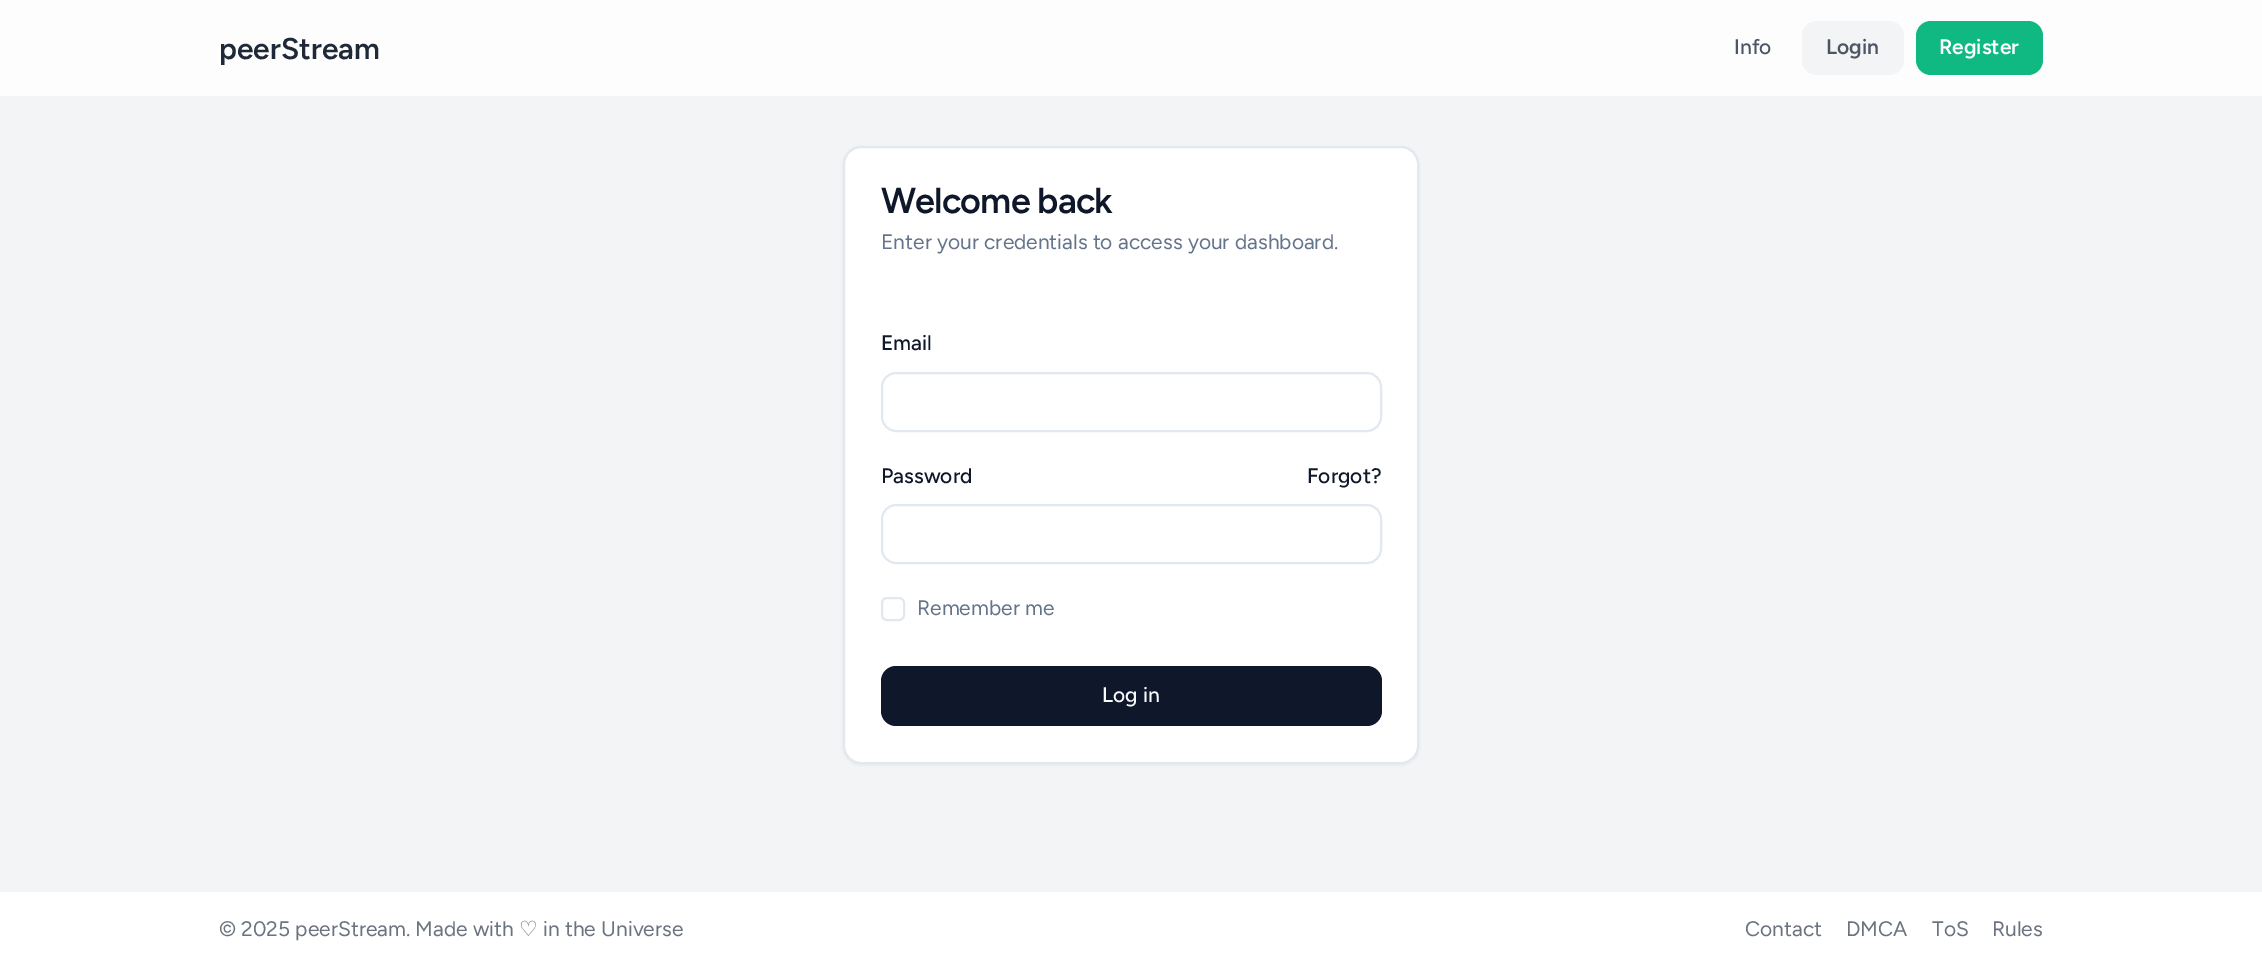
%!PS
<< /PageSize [2262 968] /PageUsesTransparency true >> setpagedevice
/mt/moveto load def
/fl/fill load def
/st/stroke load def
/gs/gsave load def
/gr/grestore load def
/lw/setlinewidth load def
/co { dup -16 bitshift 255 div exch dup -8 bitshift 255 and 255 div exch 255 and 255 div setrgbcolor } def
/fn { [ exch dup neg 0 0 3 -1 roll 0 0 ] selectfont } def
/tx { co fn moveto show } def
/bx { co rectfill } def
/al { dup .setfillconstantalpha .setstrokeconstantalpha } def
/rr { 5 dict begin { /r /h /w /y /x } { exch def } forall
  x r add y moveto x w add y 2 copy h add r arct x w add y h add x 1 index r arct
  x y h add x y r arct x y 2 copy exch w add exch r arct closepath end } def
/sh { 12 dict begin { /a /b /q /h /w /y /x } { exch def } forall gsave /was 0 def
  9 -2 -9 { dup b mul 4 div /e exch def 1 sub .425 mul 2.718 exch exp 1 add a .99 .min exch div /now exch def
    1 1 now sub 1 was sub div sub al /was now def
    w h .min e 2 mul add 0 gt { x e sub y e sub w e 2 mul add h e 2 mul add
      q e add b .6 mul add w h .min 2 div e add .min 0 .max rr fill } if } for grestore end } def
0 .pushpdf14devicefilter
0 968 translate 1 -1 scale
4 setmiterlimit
0 0 2262 968 16#F3F4F6 bx
0 0 2262 96 16#FDFDFD bx
16#F3F4F6 co
1802 21 102 54 15 rr fl
16#10B981 co
1916 21 127 54 15 rr fl
16#000000 co
843 147 576 618 18 1.5 .05 sh
16#FFFFFF co
844 147 574 616 17 rr gs fl gr
16#E2E8F0 co
2 lw
st
882 373 499 58 14 rr st
882 505 499 58 14 rr st
882 598 22 22 5 rr st
16#0F172A co
881 666 501 60 15 rr fl
0 892 2262 76 16#FFFFFF bx
(peerStream) 219 59 /Figtree-SemiBold 30 16#1F2937 tx
(Info) 1734 54 /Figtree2-Light 21 16#4B5563 tx
(Login) 1826 54 /Figtree-SemiBold 21 16#4B5563 tx
(Register) 1939 54 /Figtree-SemiBold 21 16#FFFFFF tx
/Figtree-SemiBold 36 fn
16#0F172A co
881 213 mt -.9 0 (Welcome back) ashow
(Enter your credentials to access your dashboard.) 881 249 /Figtree-Light 21 16#64748B tx
(Email) 881 350 /Figtree2-Light 21 16#0F172A tx
(Password) 881 483 /Figtree2-Light 21 16#0F172A tx
(Forgot?) 1307 483 /Figtree2-Light 21 16#0F172A tx
(Remember me) 917 615 /Figtree-Light 21 16#64748B tx
(Log in) 1102 702 /Figtree2-Light 21 16#F8FAFC tx
(© 2025 peerStream. Made with) 219 936 /Figtree-Light 21 16#6B7280 tx
(♡) 519 936 /DejaVuSans-Regular 21 16#6B7280 tx
(in the Universe) 543 936 /Figtree-Light 21 16#6B7280 tx
(Contact) 1745 936 /Figtree-Light 21 16#6B7280 tx
(DMCA) 1846 936 /Figtree-Light 21 16#6B7280 tx
(ToS) 1932 936 /Figtree-Light 21 16#6B7280 tx
(Rules) 1992 936 /Figtree-Light 21 16#6B7280 tx
.poppdf14devicefilter showpage
